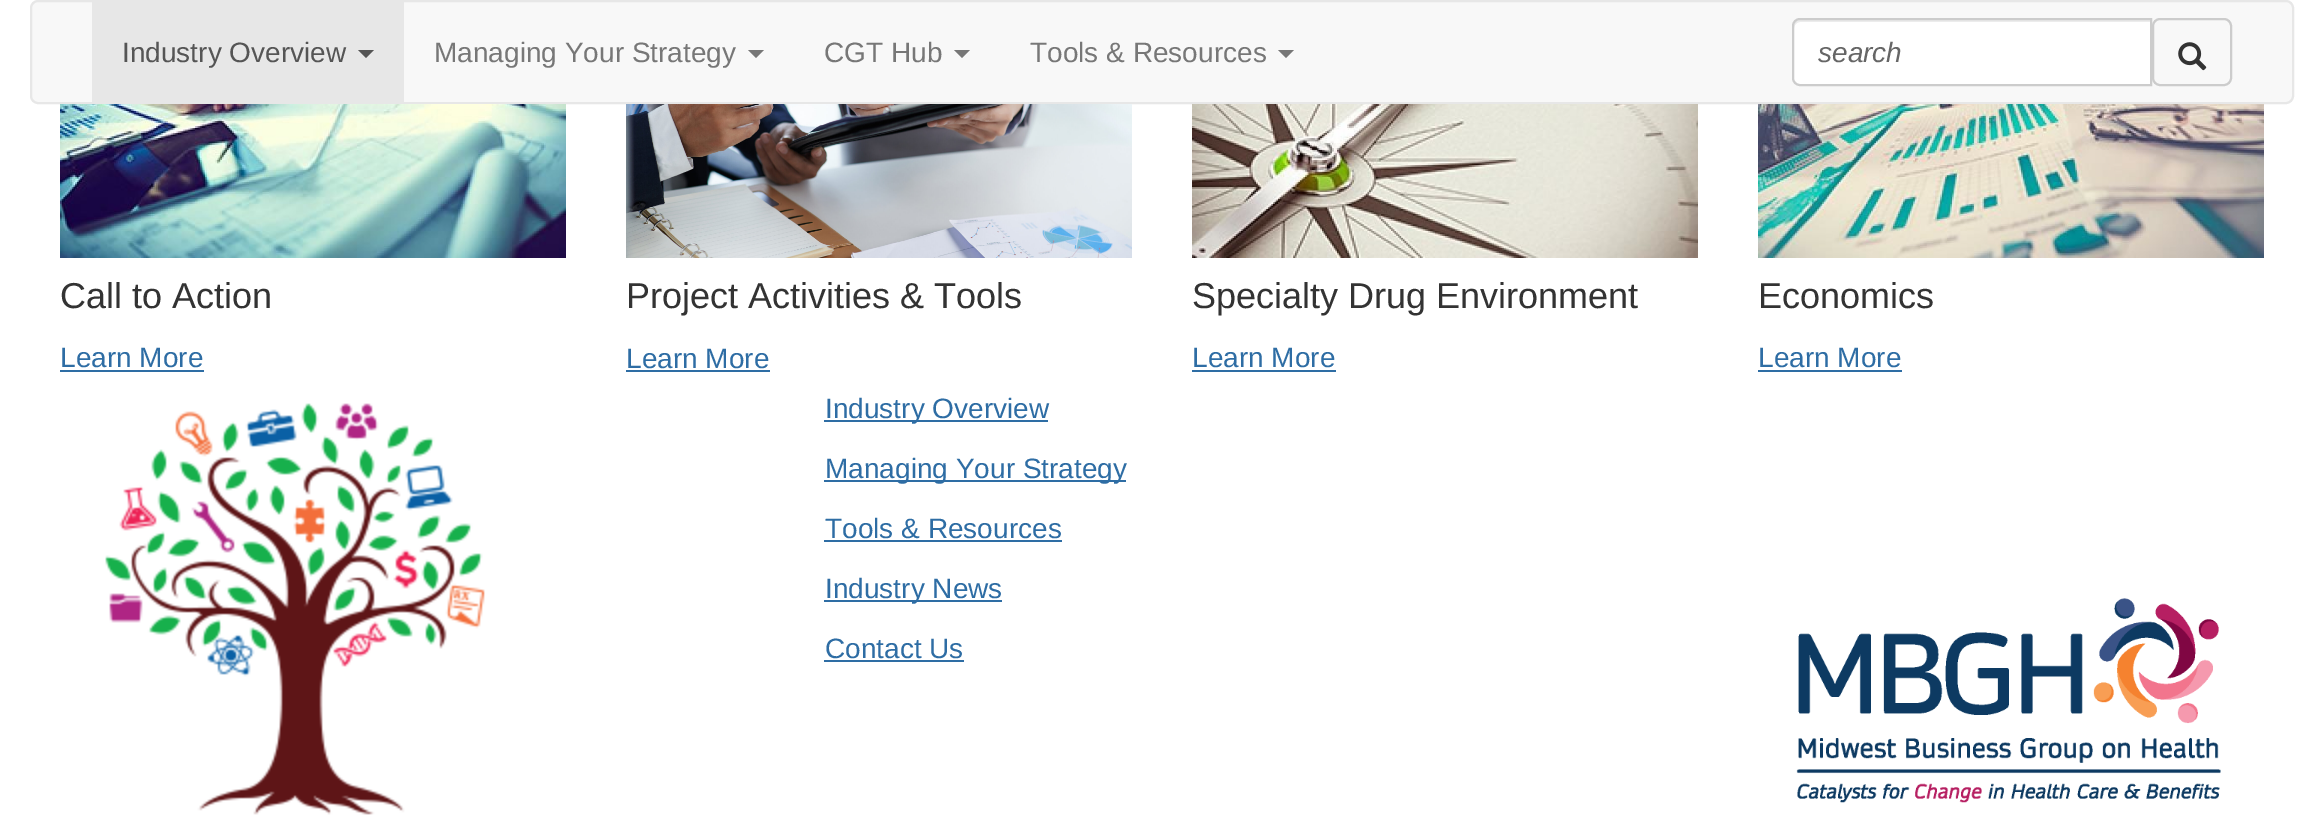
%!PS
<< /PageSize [2323 820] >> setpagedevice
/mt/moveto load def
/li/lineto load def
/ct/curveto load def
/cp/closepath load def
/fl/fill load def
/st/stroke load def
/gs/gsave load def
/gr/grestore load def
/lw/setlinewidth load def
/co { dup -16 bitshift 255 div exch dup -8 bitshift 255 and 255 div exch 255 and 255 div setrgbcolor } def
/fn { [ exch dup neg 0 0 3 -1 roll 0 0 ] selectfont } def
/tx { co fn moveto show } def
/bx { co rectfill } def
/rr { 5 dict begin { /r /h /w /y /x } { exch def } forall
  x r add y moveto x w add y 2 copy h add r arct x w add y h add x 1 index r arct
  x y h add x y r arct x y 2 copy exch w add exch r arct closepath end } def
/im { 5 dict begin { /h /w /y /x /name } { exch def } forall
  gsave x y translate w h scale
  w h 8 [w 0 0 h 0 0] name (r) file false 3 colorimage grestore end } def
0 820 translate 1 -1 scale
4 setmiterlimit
0 0 2323 820 16#FFFFFF bx
16#F8F8F8 co
31 1 2262 102 7 rr gs fl gr
16#E7E7E7 co
2 lw
st
92 2 312 100 16#E7E7E7 bx
16#555555 co
358 50 mt 374 50 li 366 58 li cp fl
16#777777 co
748 50 mt 764 50 li 756 58 li cp fl
954 50 mt 970 50 li 962 58 li cp fl
1278 50 mt 1294 50 li 1286 58 li cp fl
16#FFFFFF co
1800 18 mt 2152 18 li 2152 86 li 1800 86 li 1795.5 86 1792 82.5 1792 78 ct 1792 26 li 1792 21.5 1795.5 18 1800 18 ct cp fl
16#ECECEC co
1800 22 mt 2150 22 li 2150 20 li 1800 20 li 1797 20 1794 23 1794 26 ct 1794 28 li 1794 25 1797 22 1800 22 ct cp fl
16#CCCCCC co
1800 19 mt 2151 19 li 2151 85 li 1800 85 li 1796 85 1793 82 1793 78 ct 1793 26 li 1793 22 1796 19 1800 19 ct cp st
2153 19 78 66 7 rr st
(media/1.raw) 2178 42 29 29 im
(media/2.raw) 60 104 506 154 im
60 370 144 2 16#2E6DA4 bx
(media/3.raw) 626 104 506 154 im
626 370 144 2 16#2E6DA4 bx
(media/4.raw) 1192 104 506 154 im
1192 370 144 2 16#2E6DA4 bx
(media/5.raw) 1758 104 506 154 im
1758 370 144 2 16#2E6DA4 bx
(media/6.raw) 105 403 380 412 im
824 420 224 2 16#2E6DA4 bx
824 480 302 2 16#2E6DA4 bx
824 540 238 2 16#2E6DA4 bx
824 600 178 2 16#2E6DA4 bx
824 660 140 2 16#2E6DA4 bx
(media/7.raw) 1796 598 425 205 im
(Industry Overview) 122 62 /LiberationSans-Regular 28 16#555555 tx
(Managing Your Strategy) 434 62 /LiberationSans-Regular 28 16#777777 tx
(CGT Hub) 824 62 /LiberationSans-Regular 28 16#777777 tx
(Tools & Resources) 1030 62 /LiberationSans-Regular 28 16#777777 tx
(search) 1818 62 /LiberationSans-Italic 28 16#666666 tx
(Call to Action) 60 308 /LiberationSans-Regular 36 16#333333 tx
(Learn More) 60 367 /LiberationSans-Regular 28 16#2E6DA4 tx
(Project Activities & Tools) 626 308 /LiberationSans-Regular 36 16#333333 tx
(Learn More) 626 368 /LiberationSans-Regular 28 16#2E6DA4 tx
(Specialty Drug Environment) 1192 308 /LiberationSans-Regular 36 16#333333 tx
(Learn More) 1192 367 /LiberationSans-Regular 28 16#2E6DA4 tx
(Economics) 1758 308 /LiberationSans-Regular 36 16#333333 tx
(Learn More) 1758 367 /LiberationSans-Regular 28 16#2E6DA4 tx
(Industry Overview) 825 418 /LiberationSans-Regular 28 16#2E6DA4 tx
(Managing Your Strategy) 825 478 /LiberationSans-Regular 28 16#2E6DA4 tx
(Tools & Resources) 825 538 /LiberationSans-Regular 28 16#2E6DA4 tx
(Industry News) 825 598 /LiberationSans-Regular 28 16#2E6DA4 tx
(Contact Us) 825 658 /LiberationSans-Regular 28 16#2E6DA4 tx
showpage
